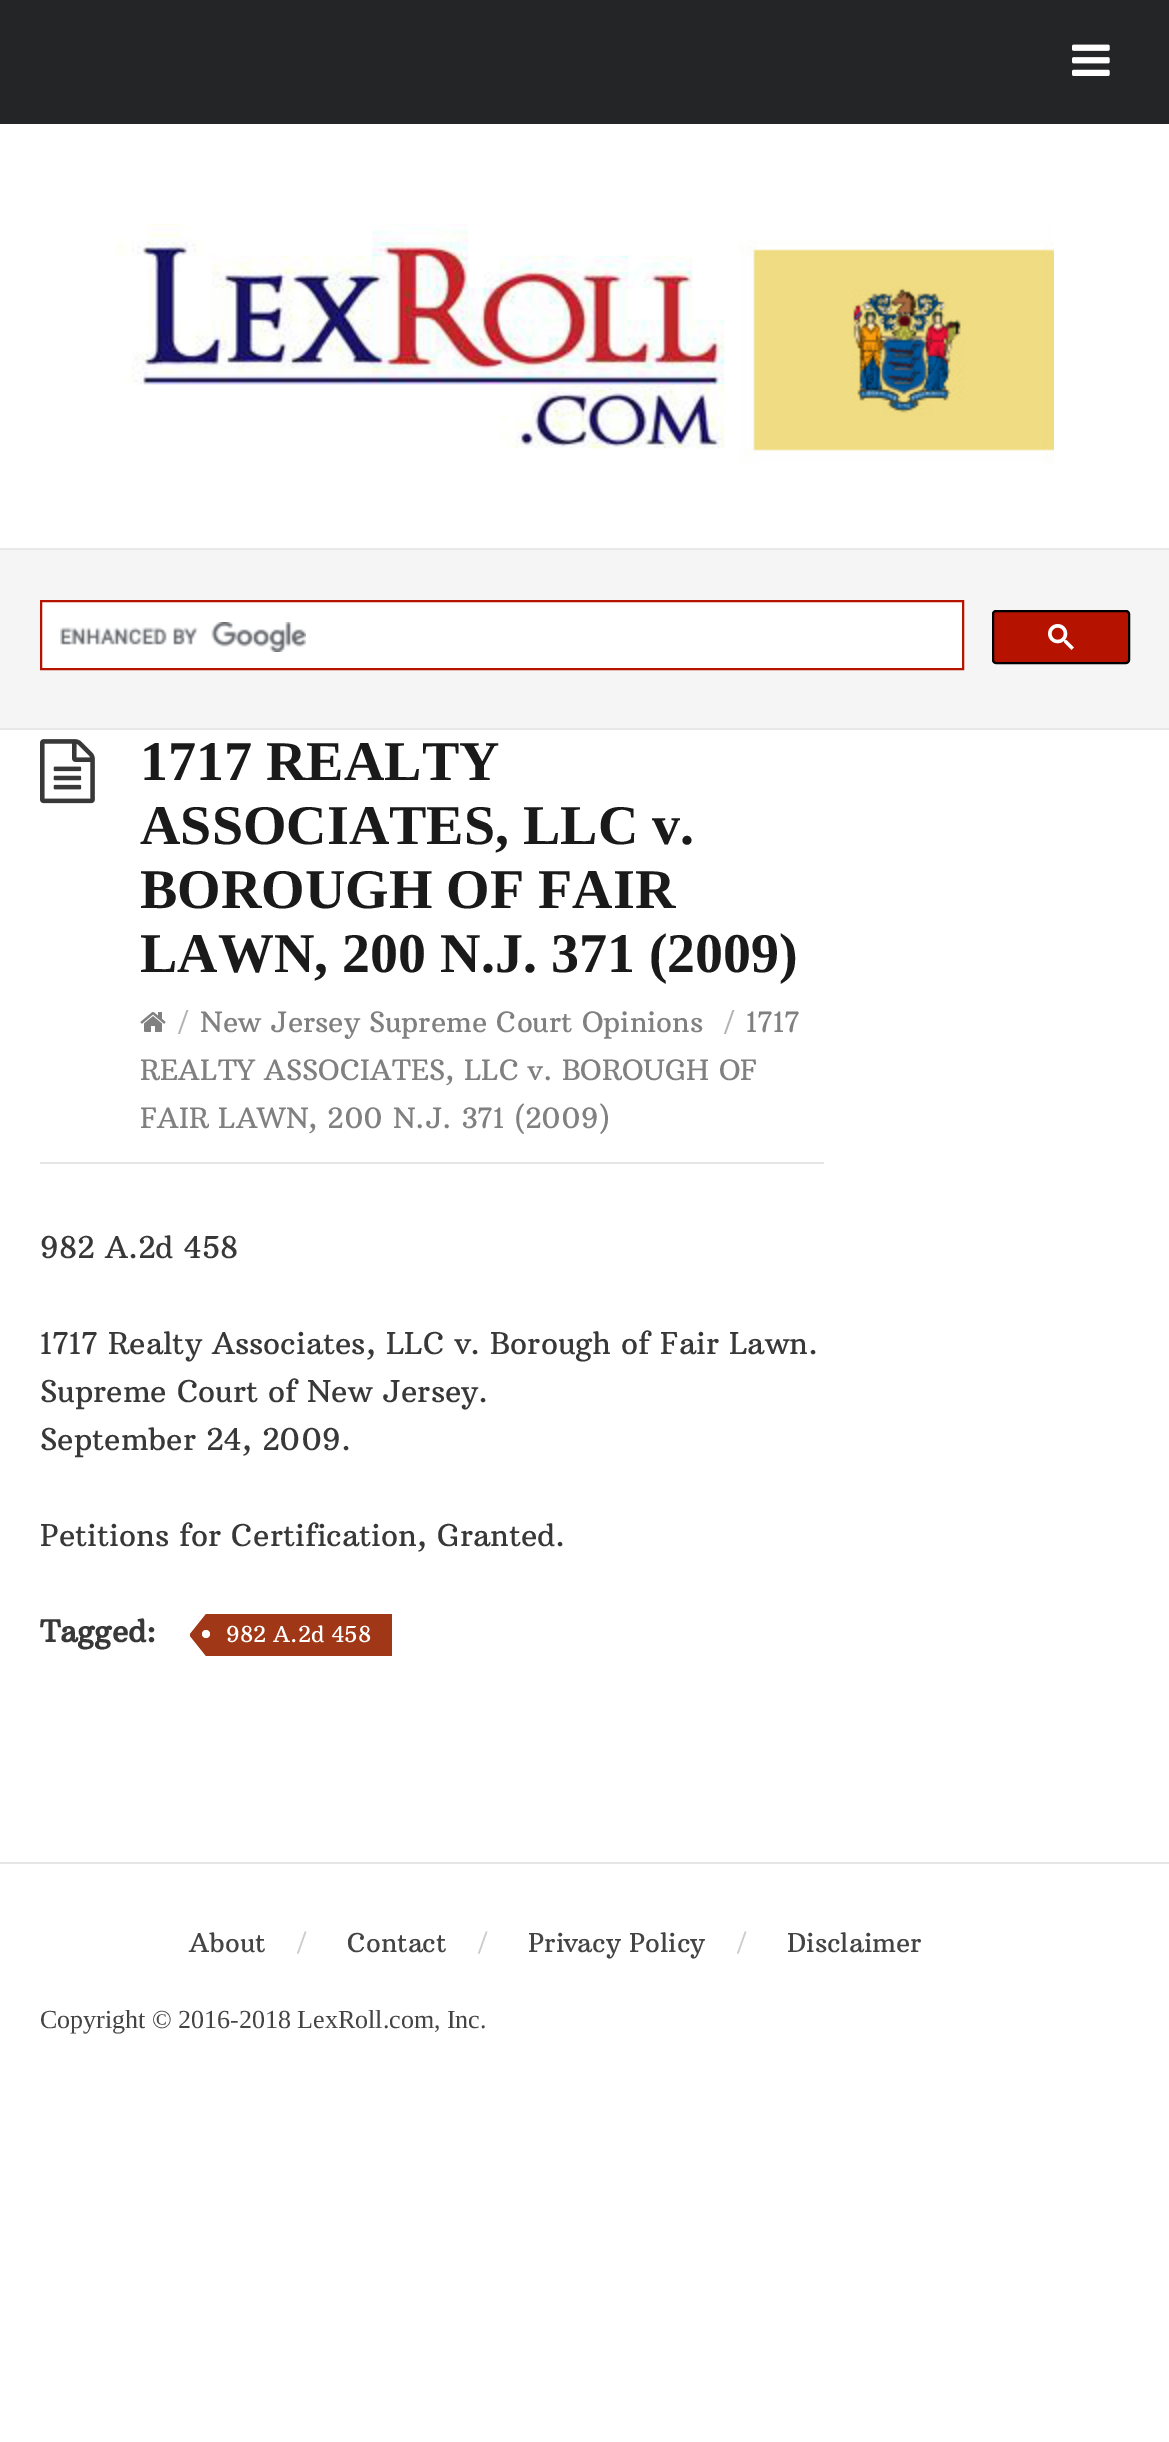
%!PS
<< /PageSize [1169 2442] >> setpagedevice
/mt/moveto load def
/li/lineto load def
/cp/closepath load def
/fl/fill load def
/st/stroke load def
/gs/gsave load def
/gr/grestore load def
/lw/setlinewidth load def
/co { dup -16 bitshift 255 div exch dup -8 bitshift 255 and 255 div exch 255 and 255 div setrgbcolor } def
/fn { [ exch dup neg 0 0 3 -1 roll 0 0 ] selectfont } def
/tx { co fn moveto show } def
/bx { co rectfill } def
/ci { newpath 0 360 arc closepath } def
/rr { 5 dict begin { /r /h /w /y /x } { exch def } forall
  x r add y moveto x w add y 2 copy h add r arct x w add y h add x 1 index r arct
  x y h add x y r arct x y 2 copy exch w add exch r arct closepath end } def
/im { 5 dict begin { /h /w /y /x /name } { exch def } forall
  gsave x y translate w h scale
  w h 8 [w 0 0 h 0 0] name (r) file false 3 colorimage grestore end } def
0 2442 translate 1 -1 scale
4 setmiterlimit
0 0 1169 2442 16#FFFFFF bx
0 0 1169 124 16#242526 bx
(media/1.raw) 1072 44 38 32 im
(media/2.raw) 116 224 938 240 im
0 550 1169 178 16#F5F5F5 bx
0 548 1169 2 16#E8E8E8 bx
0 728 1169 2 16#E8E8E8 bx
16#FFFFFF co
41 601 mt 963 601 li 963 669 li 41 669 li cp gs fl gr
16#B51200 co
2 lw
st
(media/3.raw) 60 622 246 30 im
993 611 136 52 3 rr gs fl gr
16#000000 co
st
(media/4.raw) 1048 624 26 26 im
40 1162 784 2 16#E6E6E6 bx
(media/5.raw) 40 739 55 65 im
(media/6.raw) 140 1012 26 20 im
206 1614 186 42 16#A03717 bx
206 1614 mt 206 1656 li 190 1636 li 190 1634 li cp fl
16#FFFFFF co
206 1634 4 ci fl
0 1862 1169 2 16#E6E6E6 bx
(1717 REALTY) 140 780 /LiberationSerif-Bold 56 16#1A1A1A tx
(ASSOCIATES, LLC v.) 140 844 /LiberationSerif-Bold 56 16#1A1A1A tx
(BOROUGH OF FAIR) 140 908 /LiberationSerif-Bold 56 16#1A1A1A tx
(LAWN, 200 N.J. 371 \(2009\)) 140 972 /LiberationSerif-Bold 56 16#1A1A1A tx
(/) 176 1032 /ArbutusSlab-Regular 28 16#B3B3B3 tx
(New Jersey Supreme Court Opinions) 200 1032 /ArbutusSlab-Regular 28 16#808080 tx
(/) 722 1032 /ArbutusSlab-Regular 28 16#B3B3B3 tx
(1717) 746 1032 /ArbutusSlab-Regular 28 16#808080 tx
(REALTY ASSOCIATES, LLC v. BOROUGH OF) 140 1080 /ArbutusSlab-Regular 28 16#808080 tx
(FAIR LAWN, 200 N.J. 371 \(2009\)) 140 1128 /ArbutusSlab-Regular 28 16#808080 tx
(982 A.2d 458) 40 1258 /ArbutusSlab-Regular 30 16#383838 tx
(1717 Realty Associates, LLC v. Borough of Fair Lawn.) 40 1354 /ArbutusSlab-Regular 30 16#383838 tx
(Supreme Court of New Jersey.) 40 1402 /ArbutusSlab-Regular 30 16#383838 tx
(September 24, 2009.) 40 1450 /ArbutusSlab-Regular 30 16#383838 tx
(Petitions for Certification, Granted.) 40 1546 /ArbutusSlab-Regular 30 16#383838 tx
(Tagged:) 40 1642 /ArbutusSlab-Bold 30 16#383838 tx
(982 A.2d 458) 226 1642 /ArbutusSlab-Regular 22 16#FFFFFF tx
(About) 189 1952 /ArbutusSlab-Regular 26 16#444444 tx
(/) 295 1952 /ArbutusSlab-Regular 26 16#CCCCCC tx
(Contact) 347 1952 /ArbutusSlab-Regular 26 16#444444 tx
(/) 476 1952 /ArbutusSlab-Regular 26 16#CCCCCC tx
(Privacy Policy) 528 1952 /ArbutusSlab-Regular 26 16#444444 tx
(/) 735 1952 /ArbutusSlab-Regular 26 16#CCCCCC tx
(Disclaimer) 787 1952 /ArbutusSlab-Regular 26 16#444444 tx
(Copyright © 2016-2018 LexRoll.com, Inc.) 40 2028 /LiberationSerif-Regular 26 16#444444 tx
showpage
